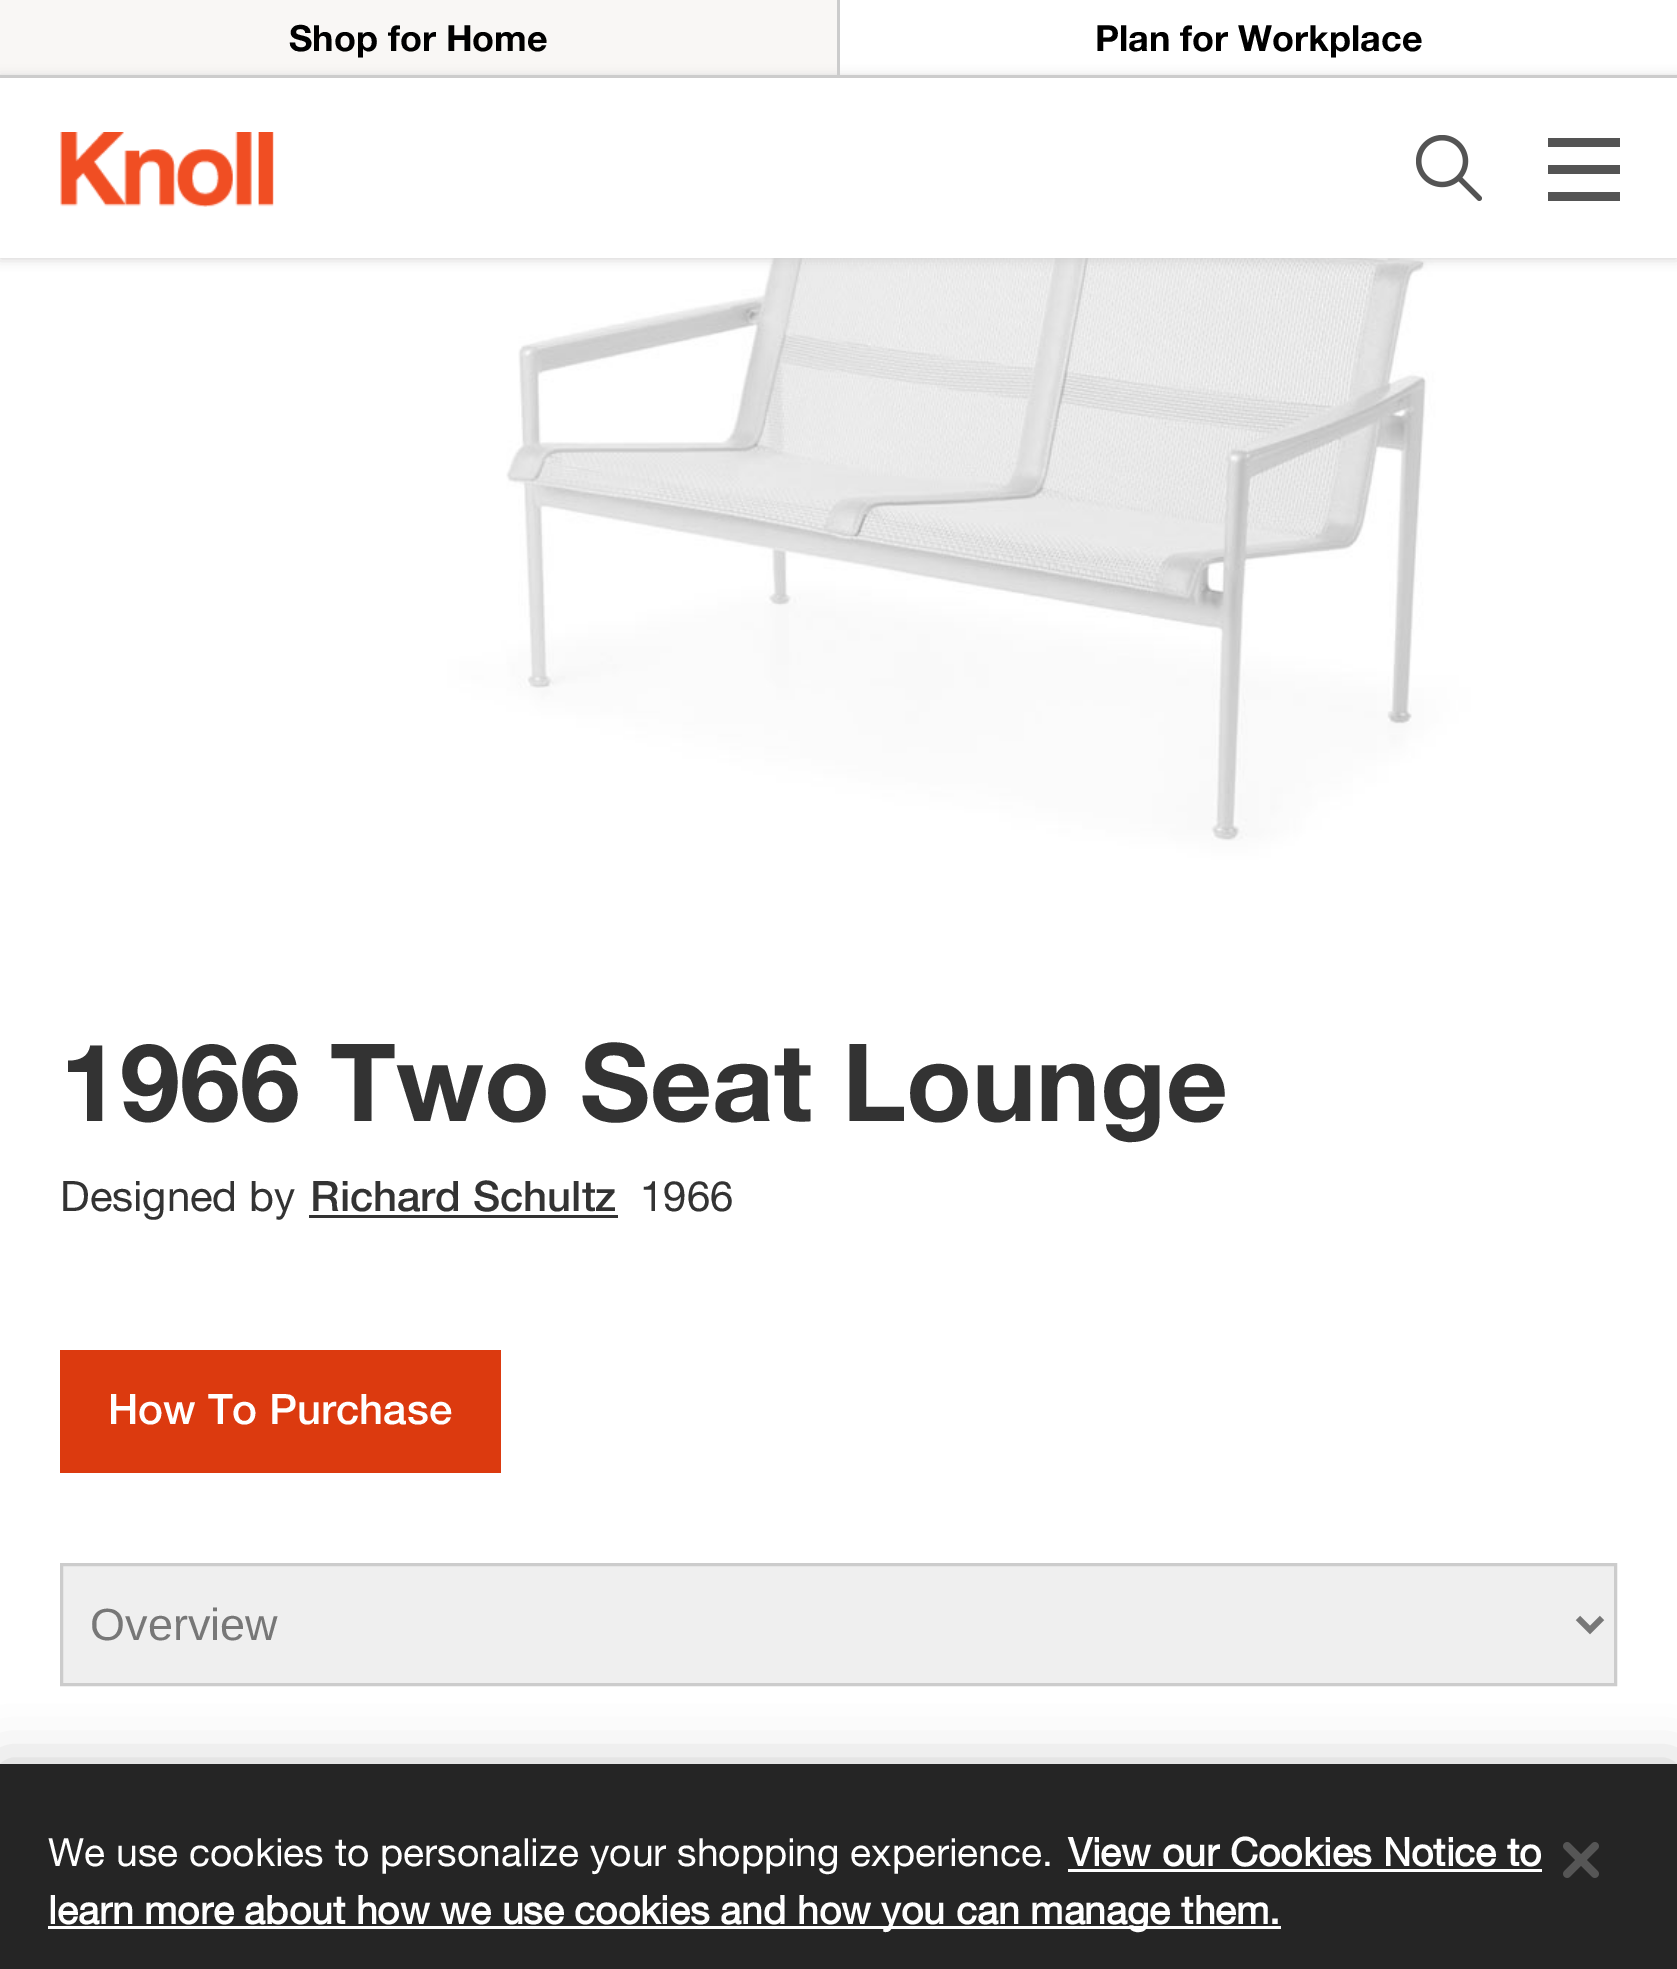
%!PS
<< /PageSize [1677 1969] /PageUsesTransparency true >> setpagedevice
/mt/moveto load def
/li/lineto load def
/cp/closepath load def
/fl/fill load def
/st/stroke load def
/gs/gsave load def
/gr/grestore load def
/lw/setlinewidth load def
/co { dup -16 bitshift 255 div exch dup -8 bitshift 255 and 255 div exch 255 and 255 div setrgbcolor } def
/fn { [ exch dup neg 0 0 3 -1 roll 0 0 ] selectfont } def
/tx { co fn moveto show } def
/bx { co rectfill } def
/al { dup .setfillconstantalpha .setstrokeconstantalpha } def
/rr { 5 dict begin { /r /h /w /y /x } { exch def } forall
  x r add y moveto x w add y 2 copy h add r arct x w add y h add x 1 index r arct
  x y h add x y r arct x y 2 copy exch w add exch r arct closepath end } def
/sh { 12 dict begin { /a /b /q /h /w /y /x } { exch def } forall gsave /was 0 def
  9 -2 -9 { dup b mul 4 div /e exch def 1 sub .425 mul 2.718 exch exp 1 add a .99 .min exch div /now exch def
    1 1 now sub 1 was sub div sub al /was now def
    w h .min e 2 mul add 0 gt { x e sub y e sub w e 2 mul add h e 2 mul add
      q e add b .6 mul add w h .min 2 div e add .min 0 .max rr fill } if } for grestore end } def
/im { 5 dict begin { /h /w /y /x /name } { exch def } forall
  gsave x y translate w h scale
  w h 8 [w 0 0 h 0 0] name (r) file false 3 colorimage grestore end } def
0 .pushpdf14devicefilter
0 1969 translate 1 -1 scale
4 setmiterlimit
0 0 1677 1969 16#FFFFFF bx
0 75 1677 3 16#CCCCCC bx
0 0 837 75 16#F9F7F5 bx
837 0 3 78 16#CCCCCC bx
(media/3.raw) 60 258 1557 612 im
16#CBCACA co
0 78 1677 180 0 6 1 sh
0 78 1677 180 16#FFFFFF bx
(media/1.raw) 60 132 214 75 im
(media/2.raw) 1416 135 66 66 im
1548 138 72 9 16#545454 bx
1548 165 72 9 16#545454 bx
1548 192 72 9 16#545454 bx
309 1215 309 3 16#333333 bx
60 1350 441 123 16#DC3A0F bx
16#EFEFEF co
61.5 1564.5 mt 1615.5 1564.5 li 1615.5 1684.5 li 61.5 1684.5 li cp gs fl gr
16#CCCCCC co
3 lw
st
16#777777 co
6 lw
1578 1618 mt 1590 1630 li 1602 1618 li st
16#000000 co
0 1764 1677 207 0 27 .2 sh
0 1764 1677 205 16#252525 bx
1068 1869 474 3 16#FFFFFF bx
48 1926 1233 3 16#FFFFFF bx
(media/4.raw) 1563 1842 36 36 im
(Shop for Home) 289 51 /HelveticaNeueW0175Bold-Bold 36 16#000000 tx
(Plan for Workplace) 1095 51 /HelveticaNeueW0175Bold-Bold 36 16#000000 tx
(1966 Two Seat Lounge) 60 1121 /HelveticaNeueW0175Bold-Bold 108 16#333333 tx
(Designed by) 60 1211 /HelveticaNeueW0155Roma-Regular 42 16#333333 tx
(Richard Schultz) 310 1211 /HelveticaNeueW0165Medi-Medium 42 16#333333 tx
(1966) 640 1211 /HelveticaNeueW0155Roma-Regular 42 16#333333 tx
(How To Purchase) 108 1424 /HelveticaNeueW0165Medi-Medium 42 16#FFFFFF tx
(Overview) 90 1640 /LiberationSans-Regular 45 16#777777 tx
(We use cookies to personalize your shopping experience.) 48 1866 /HelveticaNeueW0155Roma-Regular 39 16#FFFFFF tx
(View our Cookies Notice to) 1068 1866 /HelveticaNeueW0155Roma-Bold 39 16#FFFFFF tx
(learn more about how we use cookies and how you can manage them.) 48 1924 /HelveticaNeueW0155Roma-Bold 39 16#FFFFFF tx
.poppdf14devicefilter showpage
